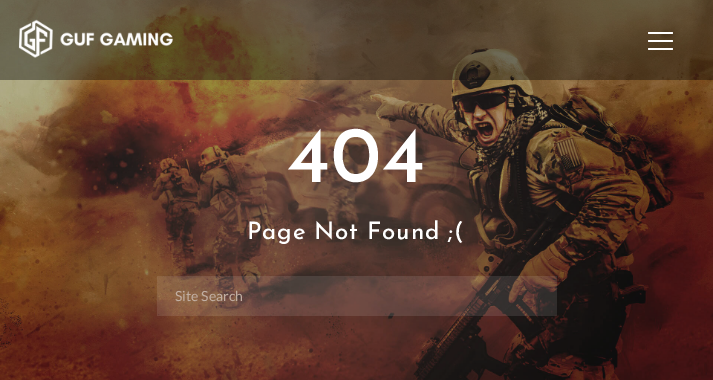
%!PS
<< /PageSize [713 380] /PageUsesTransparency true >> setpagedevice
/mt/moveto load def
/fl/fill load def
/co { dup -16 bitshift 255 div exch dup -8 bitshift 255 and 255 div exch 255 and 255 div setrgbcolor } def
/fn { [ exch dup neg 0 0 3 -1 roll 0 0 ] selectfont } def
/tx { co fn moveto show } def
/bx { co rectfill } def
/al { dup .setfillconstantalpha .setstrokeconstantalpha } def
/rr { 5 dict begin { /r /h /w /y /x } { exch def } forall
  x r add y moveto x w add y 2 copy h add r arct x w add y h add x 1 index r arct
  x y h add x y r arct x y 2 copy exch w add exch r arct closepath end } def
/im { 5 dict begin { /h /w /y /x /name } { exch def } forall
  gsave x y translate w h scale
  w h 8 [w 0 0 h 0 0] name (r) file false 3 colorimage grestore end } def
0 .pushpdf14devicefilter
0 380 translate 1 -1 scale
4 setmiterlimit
0 0 713 380 16#FFFFFF bx
(media/2.raw) 0 0 713 380 im
0.4 al
0 0 713 80 16#0A0A0A bx
1 al
(media/1.raw) 18 19 155 39 im
16#FFFFFF co
648 32 25 2 1 rr fl
648 40 25 2 1 rr fl
648 48 25 2 1 rr fl
0.1 al
157 276 400 40 16#FFFFFF bx
/JosefinSans-Medium 80 fn
1 al
287 182 mt .8 0 (404) ashow
/JosefinSans-Medium 24 fn
247 239 mt .8 0 (Page Not Found ;\() ashow
(Site Search) 175 301 /Lato-Regular 14 16#C1AEA2 tx
.poppdf14devicefilter showpage
